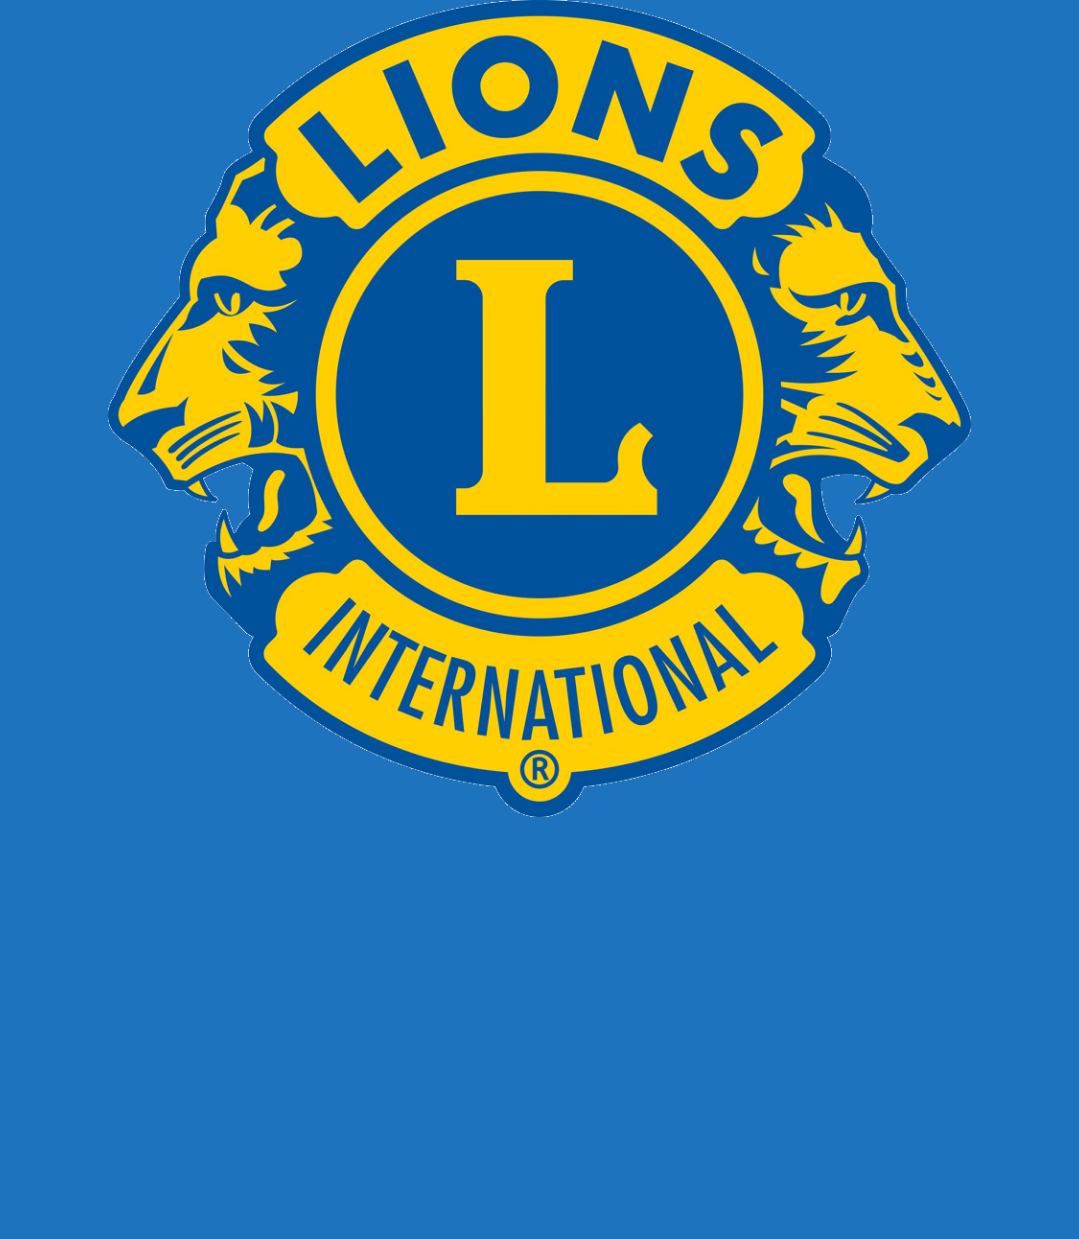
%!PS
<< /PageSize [1079 1239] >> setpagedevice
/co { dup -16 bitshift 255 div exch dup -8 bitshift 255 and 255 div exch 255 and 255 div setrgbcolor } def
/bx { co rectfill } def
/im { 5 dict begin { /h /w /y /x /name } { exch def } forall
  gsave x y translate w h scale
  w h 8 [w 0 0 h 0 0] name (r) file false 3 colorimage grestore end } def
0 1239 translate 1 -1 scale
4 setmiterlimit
0 0 1079 1239 16#1E73BE bx
(media/1.raw) 108 0 863 817 im
showpage
